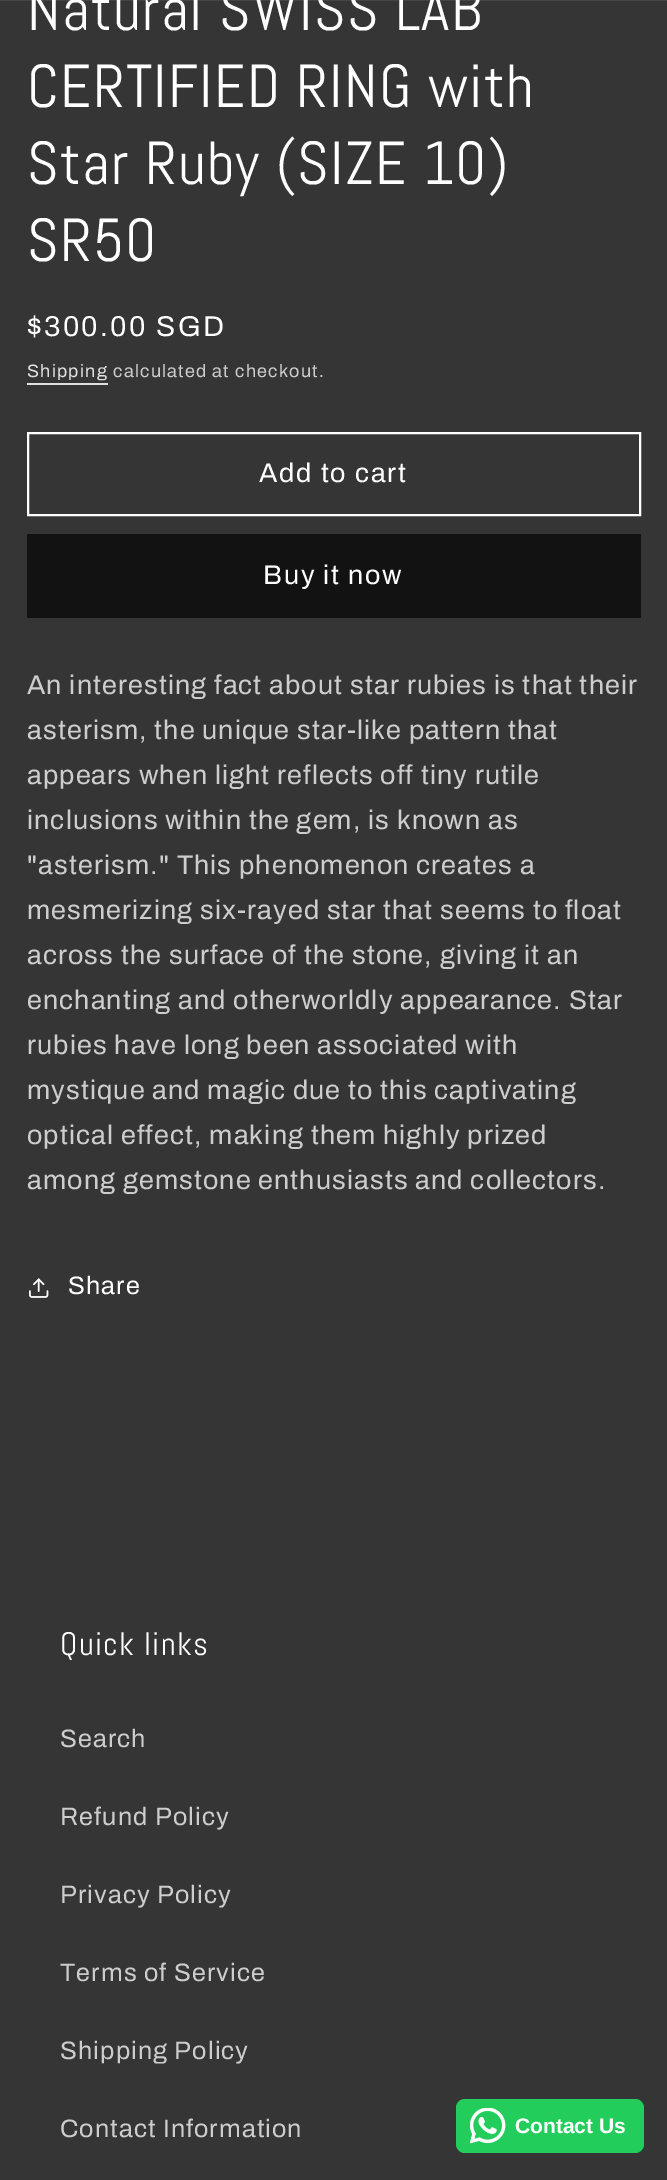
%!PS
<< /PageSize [667 2180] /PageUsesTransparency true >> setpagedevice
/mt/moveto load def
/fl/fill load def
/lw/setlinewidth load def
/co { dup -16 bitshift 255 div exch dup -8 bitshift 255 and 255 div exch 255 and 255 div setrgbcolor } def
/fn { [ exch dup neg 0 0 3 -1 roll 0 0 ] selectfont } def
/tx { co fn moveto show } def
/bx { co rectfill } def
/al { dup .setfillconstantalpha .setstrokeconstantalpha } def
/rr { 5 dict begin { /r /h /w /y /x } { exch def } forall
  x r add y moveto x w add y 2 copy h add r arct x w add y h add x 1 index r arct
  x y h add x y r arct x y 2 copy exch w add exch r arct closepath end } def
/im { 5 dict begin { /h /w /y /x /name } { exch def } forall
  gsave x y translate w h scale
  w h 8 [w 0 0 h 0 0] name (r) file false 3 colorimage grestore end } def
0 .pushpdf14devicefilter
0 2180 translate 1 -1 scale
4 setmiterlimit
0 0 667 2180 16#353535 bx
0.08 al
0 0 667 1 16#FFFFFF bx
1 al
27 383 81 2 16#E1E1E1 bx
16#FFFFFF co
2 lw
28 433 612 82 rectstroke
27 534 614 84 16#121212 bx
(media/1.raw) 29 1278 20 20 im
16#22CD5B co
456 2099 188 54 9 rr fl
(media/2.raw) 470 2108 36 36 im
/Abel-Regular 60.75 fn
16#FFFFFF co
27 30 mt 1.25 0 (Natural SWISS LAB) ashow
27 107 mt 1.25 0 (CERTIFIED RING with) ashow
27 184 mt 1.25 0 (Star Ruby \(SIZE 10\)) ashow
27 261 mt 1.25 0 (SR50) ashow
/Archivo-Regular 28.75 fn
27 336 mt 2.25 0 ($300.00 SGD) ashow
/Archivo-Regular 18 fn
16#E1E1E1 co
27 377 mt 1.25 0 (Shipping) ashow
16#CDCDCD co
113 377 mt 1.25 0 (calculated at checkout.) ashow
/Archivo-Regular 27 fn
16#FFFFFF co
259 482 mt 1.75 0 (Add to cart) ashow
263 584 mt 1.75 0 (Buy it now) ashow
16#CDCDCD co
27 694 mt 1.08 0 (An interesting fact about star rubies is that their) ashow
27 739 mt 1.08 0 (asterism, the unique star-like pattern that) ashow
27 784 mt 1.08 0 (appears when light reflects off tiny rutile) ashow
27 829 mt 1.08 0 (inclusions within the gem, is known as) ashow
27 874 mt 1.08 0 ("asterism." This phenomenon creates a) ashow
27 919 mt 1.08 0 (mesmerizing six-rayed star that seems to float) ashow
27 964 mt 1.08 0 (across the surface of the stone, giving it an) ashow
27 1009 mt 1.08 0 (enchanting and otherworldly appearance. Star) ashow
27 1054 mt 1.08 0 (rubies have long been associated with) ashow
27 1099 mt 1.08 0 (mystique and magic due to this captivating) ashow
27 1144 mt 1.08 0 (optical effect, making them highly prized) ashow
27 1189 mt 1.08 0 (among gemstone enthusiasts and collectors.) ashow
/Archivo-Regular 25.25 fn
16#FFFFFF co
68 1294 mt 1.08 0 (Share) ashow
/Abel-Regular 32.5 fn
60 1655 mt 1.25 0 (Quick links) ashow
/Archivo-Regular 25.25 fn
16#CDCDCD co
60 1747 mt 1.08 0 (Search) ashow
60 1825 mt 1.08 0 (Refund Policy) ashow
60 1903 mt 1.08 0 (Privacy Policy) ashow
60 1981 mt 1.08 0 (Terms of Service) ashow
60 2059 mt 1.08 0 (Shipping Policy) ashow
60 2137 mt 1.08 0 (Contact Information) ashow
(Contact Us) 515 2133 /LiberationSans-Bold 21 16#FFFFFF tx
.poppdf14devicefilter showpage
